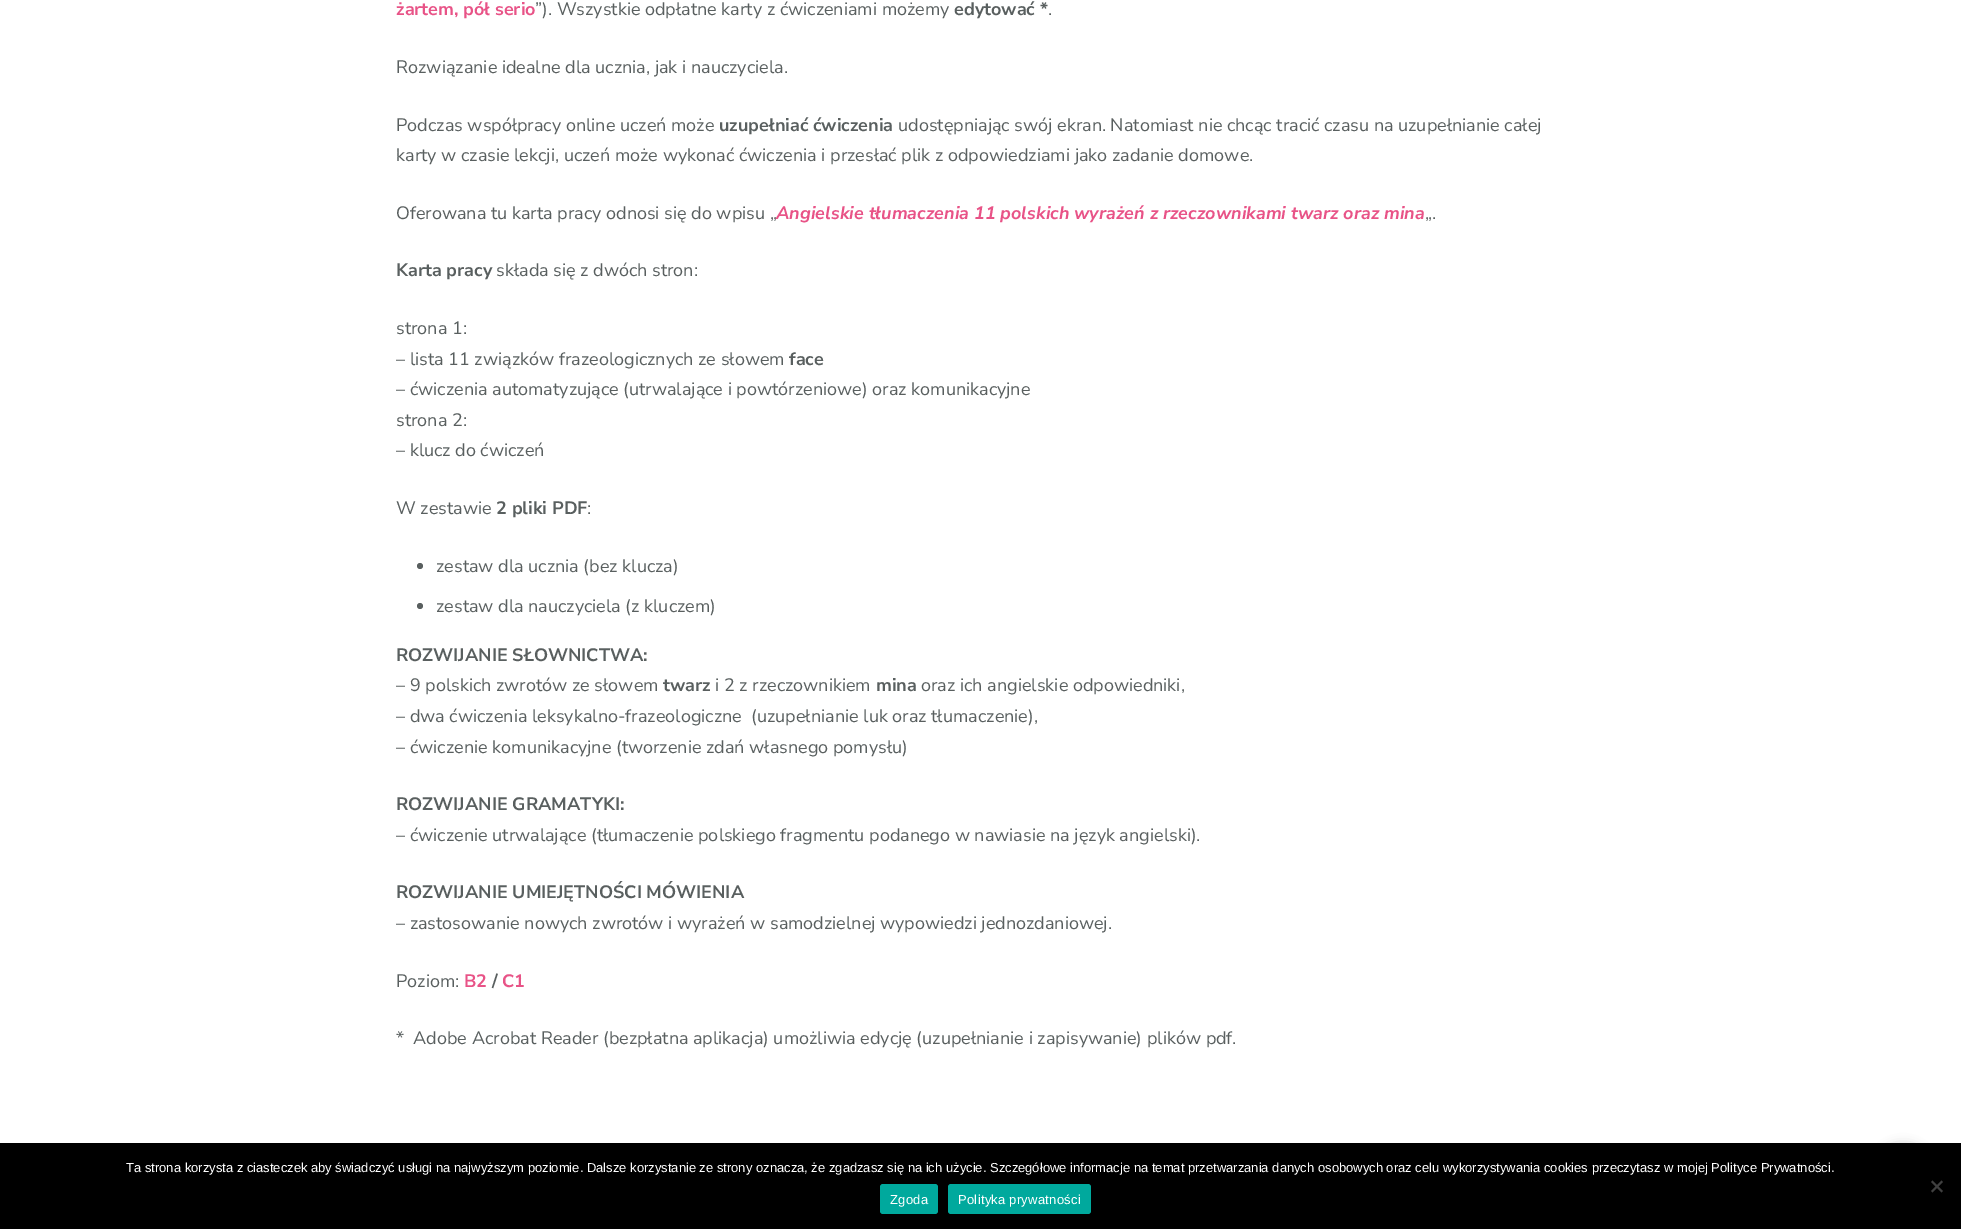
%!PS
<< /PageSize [1961 1229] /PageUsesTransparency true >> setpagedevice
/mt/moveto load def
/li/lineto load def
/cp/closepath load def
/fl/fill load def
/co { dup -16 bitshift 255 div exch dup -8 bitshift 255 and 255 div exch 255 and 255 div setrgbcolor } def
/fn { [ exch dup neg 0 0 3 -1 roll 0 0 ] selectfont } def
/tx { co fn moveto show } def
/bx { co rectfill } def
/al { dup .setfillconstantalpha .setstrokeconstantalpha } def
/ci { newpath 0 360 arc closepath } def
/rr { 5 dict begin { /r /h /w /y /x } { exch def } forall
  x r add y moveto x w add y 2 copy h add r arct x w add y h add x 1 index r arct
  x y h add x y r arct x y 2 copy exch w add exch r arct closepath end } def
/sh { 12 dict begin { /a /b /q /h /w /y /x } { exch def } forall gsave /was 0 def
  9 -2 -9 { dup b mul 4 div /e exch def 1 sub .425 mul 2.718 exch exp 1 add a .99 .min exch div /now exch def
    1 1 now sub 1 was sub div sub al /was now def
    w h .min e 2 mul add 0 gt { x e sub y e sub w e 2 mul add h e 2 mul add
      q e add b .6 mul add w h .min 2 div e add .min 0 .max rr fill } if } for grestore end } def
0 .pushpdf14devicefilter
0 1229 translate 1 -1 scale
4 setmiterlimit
0 0 1961 1229 16#FFFFFF bx
16#595F5F co
420 566 3 ci fl
420 606 3 ci fl
16#000000 co
1875 1144 56 56 28 5 .2 sh
0 1143 1961 86 16#000000 bx
16#404040 co
1941.5 1180.5 mt 1943 1182 li 1932.5 1192.5 li 1931 1191 li cp fl
1931 1182 mt 1932.5 1180.5 li 1943 1191 li 1941.5 1192.5 li cp fl
16#00A99D co
880 1184 58 30 3 rr fl
948 1184 143 30 3 rr fl
(żartem, pół serio) 396 15 /NunitoSans-Bold 18 16#E85387 tx
(”\). Wszystkie odpłatne karty z ćwiczeniami możemy) 535 15 /NunitoSans-Regular 18 16#595F5F tx
(edytować *) 954 15 /NunitoSans-Bold 18 16#595F5F tx
(.) 1048 15 /NunitoSans-Regular 18 16#595F5F tx
(Rozwiązanie idealne dla ucznia, jak i nauczyciela.) 396 73 /NunitoSans-Regular 18 16#595F5F tx
(Podczas współpracy online uczeń może) 396 131 /NunitoSans-Regular 18 16#595F5F tx
(uzupełniać ćwiczenia) 719 131 /NunitoSans-Bold 18 16#595F5F tx
(udostępniając swój ekran. Natomiast nie chcąc tracić czasu na uzupełnianie całej) 898 131 /NunitoSans-Regular 18 16#595F5F tx
(karty w czasie lekcji, uczeń może wykonać ćwiczenia i przesłać plik z odpowiedziami jako zadanie domowe.) 396 161 /NunitoSans-Regular 18 16#595F5F tx
(Oferowana tu karta pracy odnosi się do wpisu „) 396 219 /NunitoSans-Regular 18 16#595F5F tx
(Angielskie tłumaczenia 11 polskich wyrażeń z rzeczownikami twarz oraz mina) 776 219 /NunitoSans-BoldItalic 18 16#E85387 tx
(„.) 1425 219 /NunitoSans-Regular 18 16#595F5F tx
(Karta pracy) 396 276 /NunitoSans-Bold 18 16#595F5F tx
(składa się z dwóch stron:) 496 276 /NunitoSans-Regular 18 16#595F5F tx
(strona 1:) 396 334 /NunitoSans-Regular 18 16#595F5F tx
(– lista 11 związków frazeologicznych ze słowem) 396 365 /NunitoSans-Regular 18 16#595F5F tx
(face) 789 365 /NunitoSans-Bold 18 16#595F5F tx
(– ćwiczenia automatyzujące \(utrwalające i powtórzeniowe\) oraz komunikacyjne) 396 395 /NunitoSans-Regular 18 16#595F5F tx
(strona 2:) 396 426 /NunitoSans-Regular 18 16#595F5F tx
(– klucz do ćwiczeń) 396 456 /NunitoSans-Regular 18 16#595F5F tx
(W zestawie) 396 514 /NunitoSans-Regular 18 16#595F5F tx
(2 pliki PDF) 496 514 /NunitoSans-Bold 18 16#595F5F tx
(:) 587 514 /NunitoSans-Regular 18 16#595F5F tx
(zestaw dla ucznia \(bez klucza\)) 436 572 /NunitoSans-Regular 18 16#595F5F tx
(zestaw dla nauczyciela \(z kluczem\)) 436 612 /NunitoSans-Regular 18 16#595F5F tx
(ROZWIJANIE SŁOWNICTWA:) 396 661 /NunitoSans-Bold 18 16#595F5F tx
(– 9 polskich zwrotów ze słowem) 396 691 /NunitoSans-Regular 18 16#595F5F tx
(twarz) 663 691 /NunitoSans-Bold 18 16#595F5F tx
(i 2 z rzeczownikiem) 715 691 /NunitoSans-Regular 18 16#595F5F tx
(mina) 876 691 /NunitoSans-Bold 18 16#595F5F tx
(oraz ich angielskie odpowiedniki,) 921 691 /NunitoSans-Regular 18 16#595F5F tx
(– dwa ćwiczenia leksykalno-frazeologiczne  \(uzupełnianie luk oraz tłumaczenie\),) 396 722 /NunitoSans-Regular 18 16#595F5F tx
(– ćwiczenie komunikacyjne \(tworzenie zdań własnego pomysłu\)) 396 753 /NunitoSans-Regular 18 16#595F5F tx
(ROZWIJANIE GRAMATYKI:) 396 810 /NunitoSans-Bold 18 16#595F5F tx
(– ćwiczenie utrwalające \(tłumaczenie polskiego fragmentu podanego w nawiasie na język angielski\).) 396 841 /NunitoSans-Regular 18 16#595F5F tx
(ROZWIJANIE UMIEJĘTNOŚCI MÓWIENIA) 396 898 /NunitoSans-Bold 18 16#595F5F tx
(– zastosowanie nowych zwrotów i wyrażeń w samodzielnej wypowiedzi jednozdaniowej.) 396 929 /NunitoSans-Regular 18 16#595F5F tx
(Poziom:) 396 987 /NunitoSans-Regular 18 16#595F5F tx
(B2) 464 987 /NunitoSans-Bold 18 16#E85387 tx
(/) 492 987 /NunitoSans-Bold 18 16#595F5F tx
(C1) 502 987 /NunitoSans-Bold 18 16#E85387 tx
(*  Adobe Acrobat Reader \(bezpłatna aplikacja\) umożliwia edycję \(uzupełnianie i zapisywanie\) plików pdf.) 396 1044 /NunitoSans-Regular 18 16#595F5F tx
(Ta strona korzysta z ciasteczek aby świadczyć usługi na najwyższym poziomie. Dalsze korzystanie ze strony oznacza, że zgadzasz się na ich użycie. Szczegółowe informacje na temat przetwarzania danych osobowych oraz celu wykorzystywania cookies przeczytasz w mojej Polityce Prywatności.) 126 1172 /LiberationSans-Regular 13 16#FFFFFF tx
890 1204 mt .25 0 (Zgoda) ashow
958 1204 mt .25 0 (Polityka prywatności) ashow
.poppdf14devicefilter showpage
